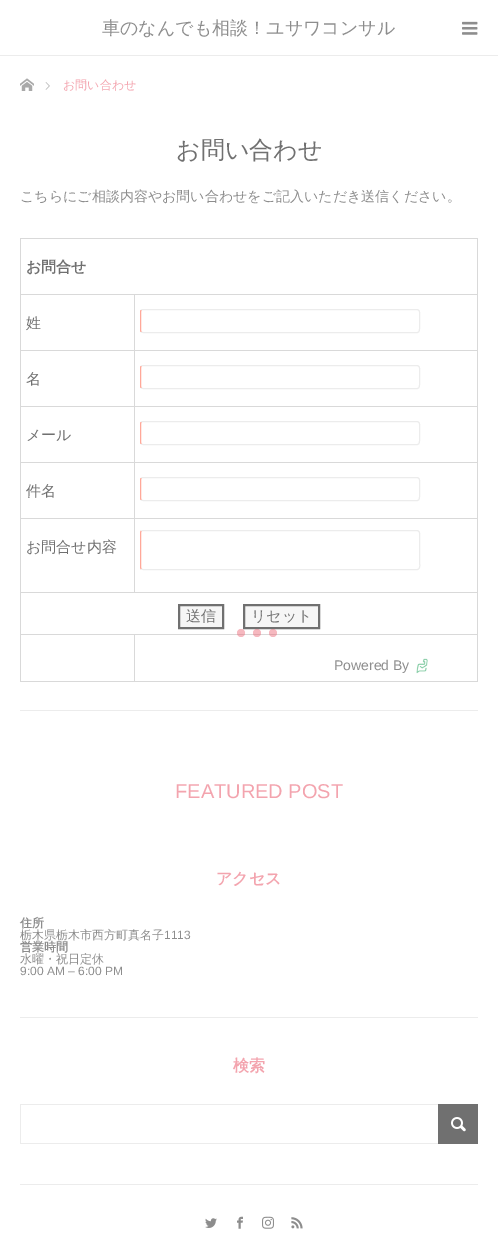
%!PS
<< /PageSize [498 1249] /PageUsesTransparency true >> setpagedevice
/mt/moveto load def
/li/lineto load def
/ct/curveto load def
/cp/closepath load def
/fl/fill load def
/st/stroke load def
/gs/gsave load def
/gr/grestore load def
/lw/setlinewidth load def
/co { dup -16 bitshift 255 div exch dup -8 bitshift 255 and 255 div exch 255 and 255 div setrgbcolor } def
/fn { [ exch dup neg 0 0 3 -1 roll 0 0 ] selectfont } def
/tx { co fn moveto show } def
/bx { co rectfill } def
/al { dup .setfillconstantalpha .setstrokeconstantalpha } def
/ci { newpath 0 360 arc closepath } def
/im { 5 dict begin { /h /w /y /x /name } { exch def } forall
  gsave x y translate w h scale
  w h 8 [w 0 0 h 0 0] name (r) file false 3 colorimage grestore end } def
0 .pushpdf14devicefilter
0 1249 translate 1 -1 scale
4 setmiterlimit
0 0 498 1249 16#FFFFFF bx
0 55 498 1 16#ECECEC bx
(media/1.raw) 462 21 16 14 im
(media/2.raw) 20 78 14 13 im
(media/3.raw) 45 82 5 8 im
20 710 458 1 16#ECECEC bx
20 238 458 1 16#D9D9D9 bx
134 294 344 1 16#D9D9D9 bx
134 350 344 1 16#D9D9D9 bx
134 406 344 1 16#D9D9D9 bx
134 462 344 1 16#D9D9D9 bx
134 518 344 1 16#D9D9D9 bx
20 592 458 1 16#D9D9D9 bx
134 634 344 1 16#D9D9D9 bx
477 634 1 48 16#D9D9D9 bx
477 592 1 43 16#D9D9D9 bx
477 518 1 75 16#D9D9D9 bx
477 462 1 57 16#D9D9D9 bx
477 406 1 57 16#D9D9D9 bx
477 350 1 57 16#D9D9D9 bx
477 294 1 57 16#D9D9D9 bx
477 238 1 57 16#D9D9D9 bx
134 518 1 75 16#D9D9D9 bx
20 518 115 1 16#D9D9D9 bx
134 462 1 57 16#D9D9D9 bx
20 462 115 1 16#D9D9D9 bx
134 406 1 57 16#D9D9D9 bx
20 406 115 1 16#D9D9D9 bx
134 350 1 57 16#D9D9D9 bx
20 350 115 1 16#D9D9D9 bx
134 294 1 57 16#D9D9D9 bx
20 294 115 1 16#D9D9D9 bx
134 681 344 1 16#D9D9D9 bx
134 634 1 48 16#D9D9D9 bx
20 634 115 1 16#D9D9D9 bx
20 681 115 1 16#D9D9D9 bx
20 634 1 48 16#D9D9D9 bx
20 592 1 43 16#D9D9D9 bx
20 518 1 75 16#D9D9D9 bx
20 462 1 57 16#D9D9D9 bx
20 406 1 57 16#D9D9D9 bx
20 350 1 57 16#D9D9D9 bx
20 294 1 57 16#D9D9D9 bx
20 238 1 57 16#D9D9D9 bx
16#ECECEC co
141 310 mt 143 309.5 li 417 309.5 li 421 309.5 419.5 316 419.5 318 ct 419.5 327 li 419.5 329 420 332.5 417 332.5 ct 143 332.5 li 141 332 li st
16#FFA899 co
141 332 mt 141 331.5 140.5 330.5 140.5 330 ct 140.5 312 li 140.5 311.5 141 310.5 141 310 ct st
16#ECECEC co
141 366 mt 143 365.5 li 417 365.5 li 421 365.5 419.5 372 419.5 374 ct 419.5 383 li 419.5 385 420 388.5 417 388.5 ct 143 388.5 li 141 388 li st
16#FFA899 co
141 388 mt 141 387.5 140.5 386.5 140.5 386 ct 140.5 368 li 140.5 367.5 141 366.5 141 366 ct st
16#ECECEC co
141 422 mt 143 421.5 li 417 421.5 li 421 421.5 419.5 428 419.5 430 ct 419.5 439 li 419.5 441 420 444.5 417 444.5 ct 143 444.5 li 141 444 li st
16#FFA899 co
141 444 mt 141 443.5 140.5 442.5 140.5 442 ct 140.5 424 li 140.5 423.5 141 422.5 141 422 ct st
16#ECECEC co
141 478 mt 143 477.5 li 417 477.5 li 421 477.5 419.5 484 419.5 486 ct 419.5 495 li 419.5 497 420 500.5 417 500.5 ct 143 500.5 li 141 500 li st
16#FFA899 co
141 500 mt 141 499.5 140.5 498.5 140.5 498 ct 140.5 480 li 140.5 479.5 141 478.5 141 478 ct st
16#ECECEC co
141 531 mt 143 530.5 li 417 530.5 li 421 530.5 419.5 537 419.5 538.5 ct 419.5 561.5 li 419.5 563 421 569 417.5 569.5 ct 143 569.5 li 141 569 li st
16#FFA899 co
141 569 mt 140.5 567 li 140.5 533 li 141 531 li st
16#F6F6F6 co
179 605 mt 223 605 li 223 628 li 179 628 li cp gs fl gr
16#707070 co
2 lw
st
16#F6F6F6 co
244 605 mt 319 605 li 319 628 li 244 628 li cp gs fl gr
16#707070 co
st
(media/4.raw) 416 658 12 16 im
20 1017 458 1 16#ECECEC bx
20 1184 458 1 16#ECECEC bx
20 1104 418 1 16#ECECEC bx
20 1143 418 1 16#ECECEC bx
20 1104 1 40 16#ECECEC bx
438 1104 40 40 16#707070 bx
(media/5.raw) 451 1117 15 15 im
(media/6.raw) 205 1218 12 10 im
(media/7.raw) 237 1216 6 13 im
(media/8.raw) 262 1216 12 13 im
(media/9.raw) 291 1217 12 12 im
0.44 al
16#EA5D6E co
241 633 4 ci fl
257 633 4 ci fl
273 633 4 ci fl
1 al
(車のなんでも相談！ユサワコンサル) 102 34 /WenQuanYiZenHei-Medium 18 16#8D8D8D tx
(お問い合わせ) 63 89 /WenQuanYiZenHei-Medium 12 16#F3A4AE tx
(お問い合わせ) 176 158 /WenQuanYiZenHei-Medium 24 16#707070 tx
(こちらにご相談内容やお問い合わせをご記入いただき送信ください。) 20 201 /WenQuanYiZenHei-Medium 14 16#8D8D8D tx
(お問合せ) 26 272 /WenQuanYiZenHei-Bold 15 16#707070 tx
(姓) 26 328 /WenQuanYiZenHei-Medium 15 16#707070 tx
(名) 26 384 /WenQuanYiZenHei-Medium 15 16#707070 tx
(メール) 26 440 /WenQuanYiZenHei-Medium 15 16#707070 tx
(件名) 26 496 /WenQuanYiZenHei-Medium 15 16#707070 tx
(お問合せ内容) 26 552 /WenQuanYiZenHei-Medium 15 16#707070 tx
(送信) 186 621 /WenQuanYiZenHei-Medium 15 16#707070 tx
(リセット) 251 621 /WenQuanYiZenHei-Medium 15 16#707070 tx
(Powered By) 334 670 /LiberationSans-Regular 14 16#8D8D8D tx
(FEATURED POST) 175 798 /LiberationSans-Regular 20 16#F3A4AE tx
(アクセス) 216 884 /WenQuanYiZenHei-Bold 16 16#F3A4AE tx
(住所) 20 927 /WenQuanYiZenHei-Bold 12 16#8D8D8D tx
(栃木県栃木市西方町真名子) 20 939 /WenQuanYiZenHei-Medium 12 16#8D8D8D tx
(1113) 164 939 /LiberationSans-Regular 12 16#8D8D8D tx
(営業時間) 20 951 /WenQuanYiZenHei-Bold 12 16#8D8D8D tx
(水曜・祝日定休) 20 963 /WenQuanYiZenHei-Medium 12 16#8D8D8D tx
(9:00 AM – 6:00 PM) 20 975 /LiberationSans-Regular 12 16#8D8D8D tx
(検索) 233 1071 /WenQuanYiZenHei-Bold 16 16#F3A4AE tx
.poppdf14devicefilter showpage
